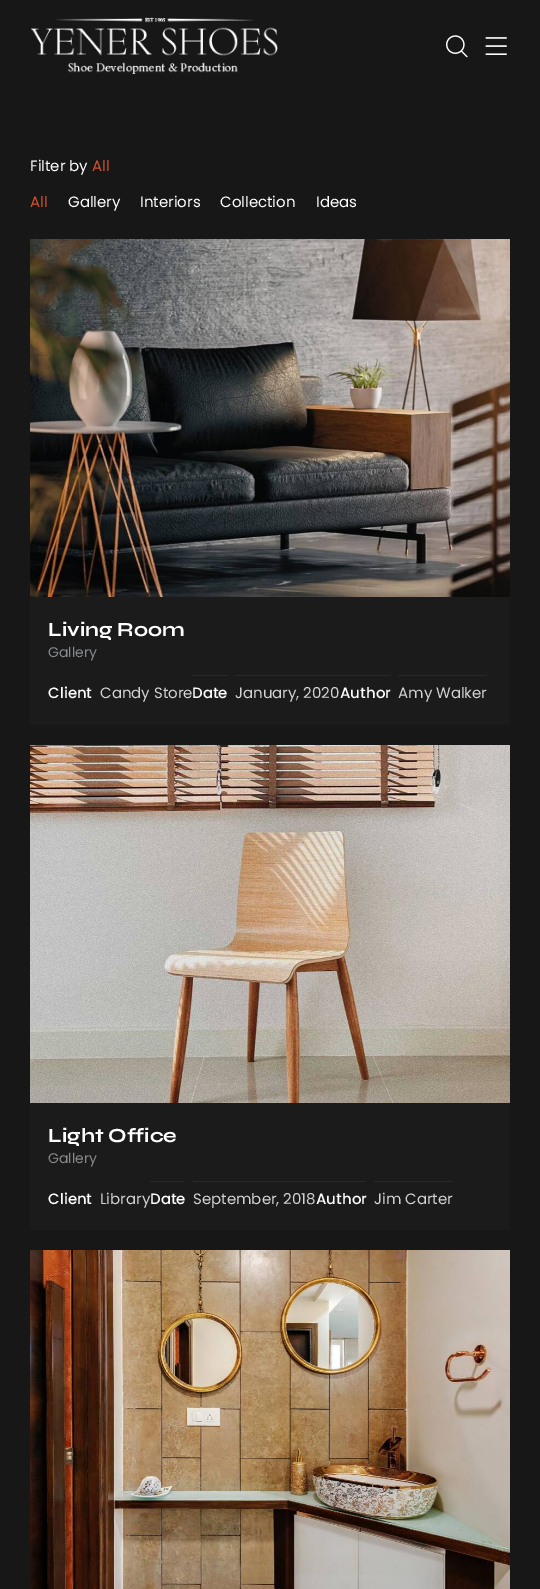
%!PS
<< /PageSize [540 1589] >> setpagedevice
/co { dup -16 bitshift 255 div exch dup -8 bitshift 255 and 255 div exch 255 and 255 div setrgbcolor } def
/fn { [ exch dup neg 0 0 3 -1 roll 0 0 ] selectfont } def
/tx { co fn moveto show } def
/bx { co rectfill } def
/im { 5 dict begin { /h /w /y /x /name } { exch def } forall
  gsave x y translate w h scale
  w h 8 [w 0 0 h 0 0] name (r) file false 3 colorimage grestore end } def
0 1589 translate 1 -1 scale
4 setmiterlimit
0 0 540 1589 16#171717 bx
(media/1.raw) 31 17 247 57 im
(media/2.raw) 446 35 22 23 im
(media/3.raw) 485 37 22 18 im
30 597 480 128 16#1B1B1B bx
(media/4.raw) 30 239 480 358 im
192 675 36 1 16#292929 bx
235 675 156 1 16#292929 bx
398 675 89 1 16#292929 bx
30 1103 480 127 16#1B1B1B bx
(media/5.raw) 30 745 480 358 im
150 1181 35 1 16#292929 bx
193 1181 173 1 16#292929 bx
374 1181 79 1 16#292929 bx
(media/6.raw) 30 1250 480 339 im
(Filter by) 30 171 /Poppins-Regular 15 16#FFFFFF tx
(All) 92 171 /Poppins-Regular 15 16#D3512D tx
(All) 30 207 /Poppins-Regular 15 16#D3512D tx
(Gallery) 68 207 /Poppins-Regular 15 16#FFFFFF tx
(Interiors) 140 207 /Poppins-Regular 15 16#FFFFFF tx
(Collection) 220 207 /Poppins-Regular 15 16#FFFFFF tx
(Ideas) 316 207 /Poppins-Regular 15 16#FFFFFF tx
(Living Room) 48 636 /Syne-Bold 20 16#FFFFFF tx
(Gallery) 48 657 /Poppins-Regular 14 16#888A8D tx
(Client) 48 698 /Poppins-Medium 15 16#FFFFFF tx
(Candy Store) 100 698 /Poppins-Regular 15 16#D2D3D5 tx
(Date) 192 698 /Poppins-Medium 15 16#FFFFFF tx
(January, 2020) 235 698 /Poppins-Regular 15 16#D2D3D5 tx
(Author) 340 698 /Poppins-Medium 15 16#FFFFFF tx
(Amy Walker) 398 698 /Poppins-Regular 15 16#D2D3D5 tx
(Light Office) 48 1142 /Syne-Bold 20 16#FFFFFF tx
(Gallery) 48 1163 /Poppins-Regular 14 16#888A8D tx
(Client) 48 1204 /Poppins-Medium 15 16#FFFFFF tx
(Library) 100 1204 /Poppins-Regular 15 16#D2D3D5 tx
(Date) 150 1204 /Poppins-Medium 15 16#FFFFFF tx
(September, 2018) 193 1204 /Poppins-Regular 15 16#D2D3D5 tx
(Author) 316 1204 /Poppins-Medium 15 16#FFFFFF tx
(Jim Carter) 374 1204 /Poppins-Regular 15 16#D2D3D5 tx
showpage
